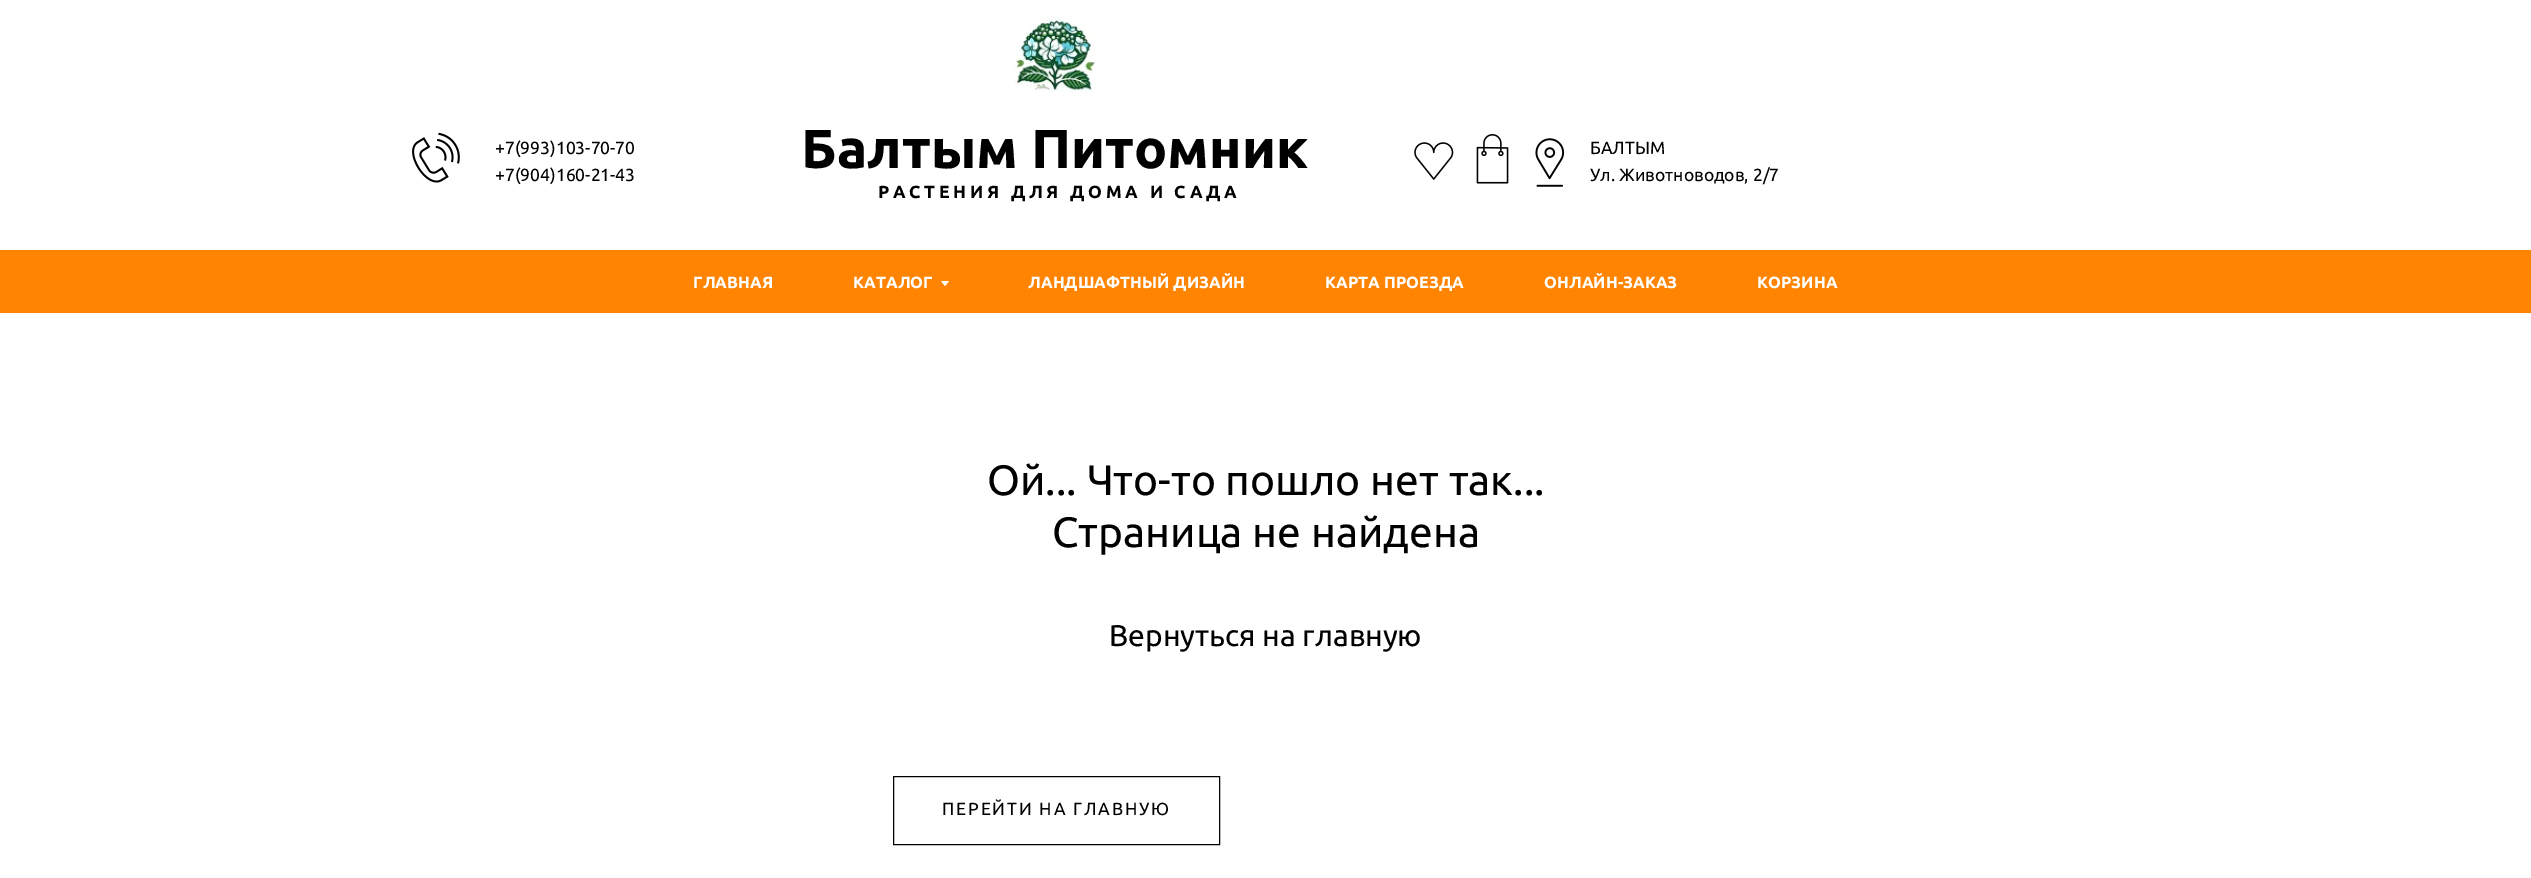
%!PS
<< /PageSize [2531 878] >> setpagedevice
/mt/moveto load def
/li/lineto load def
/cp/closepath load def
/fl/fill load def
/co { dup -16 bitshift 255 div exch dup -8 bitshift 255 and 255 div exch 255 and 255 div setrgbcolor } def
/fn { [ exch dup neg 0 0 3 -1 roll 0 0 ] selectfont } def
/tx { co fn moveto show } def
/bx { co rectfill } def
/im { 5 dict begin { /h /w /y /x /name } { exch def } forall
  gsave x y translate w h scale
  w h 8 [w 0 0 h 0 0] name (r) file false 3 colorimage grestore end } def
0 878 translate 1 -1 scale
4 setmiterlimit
0 0 2531 878 16#FFFFFF bx
(media/1.raw) 1014 15 81 77 im
(media/2.raw) 412 132 48 51 im
(media/3.raw) 1414 142 40 38 im
(media/4.raw) 1476 134 33 50 im
(media/5.raw) 1535 138 30 49 im
0 250 2531 63 16#FF8401 bx
16#FFFFFF co
941 281 mt 949 281 li 945 286 li cp fl
16#000000 co
893.5 776.5 326 68 rectstroke
(+7\(993\)103-70-70) 495 154 /Ubuntu-Regular 17.5 16#000000 tx
(+7\(904\)160-21-43) 495 181 /Ubuntu-Regular 17.5 16#000000 tx
(Балтым Питомник) 801 168 /Ubuntu-Bold 55 16#000000 tx
(БАЛТЫМ) 1590 154 /Ubuntu-Regular 17.5 16#000000 tx
(Ул. Животноводов, 2/7) 1590 181 /Ubuntu-Regular 17.5 16#000000 tx
/Ubuntu-Bold 17.5 fn
878 198 mt 3.75 0 (РАСТЕНИЯ ДЛЯ ДОМА И САДА) ashow
(ГЛАВНАЯ) 693 288 /Ubuntu-Bold 16.25 16#FFFFFF tx
(КАТАЛОГ) 853 288 /Ubuntu-Bold 16.25 16#FFFFFF tx
(ЛАНДШАФТНЫЙ ДИЗАЙН) 1028 288 /Ubuntu-Bold 16.25 16#FFFFFF tx
(КАРТА ПРОЕЗДА) 1325 288 /Ubuntu-Bold 16.25 16#FFFFFF tx
(ОНЛАЙН-ЗАКАЗ) 1544 288 /Ubuntu-Bold 16.25 16#FFFFFF tx
(КОРЗИНА) 1757 288 /Ubuntu-Bold 16.25 16#FFFFFF tx
(Ой... Что-то пошло нет так...) 987 495 /Ubuntu-Regular 42.5 16#000000 tx
(Страница не найдена) 1052 547 /Ubuntu-Regular 42.5 16#000000 tx
(Вернуться на главную) 1109 646 /Ubuntu-Regular 30 16#000000 tx
/Ubuntu-Regular 17.5 fn
942 815 mt 1.9 0 (ПЕРЕЙТИ НА ГЛАВНУЮ) ashow
showpage
